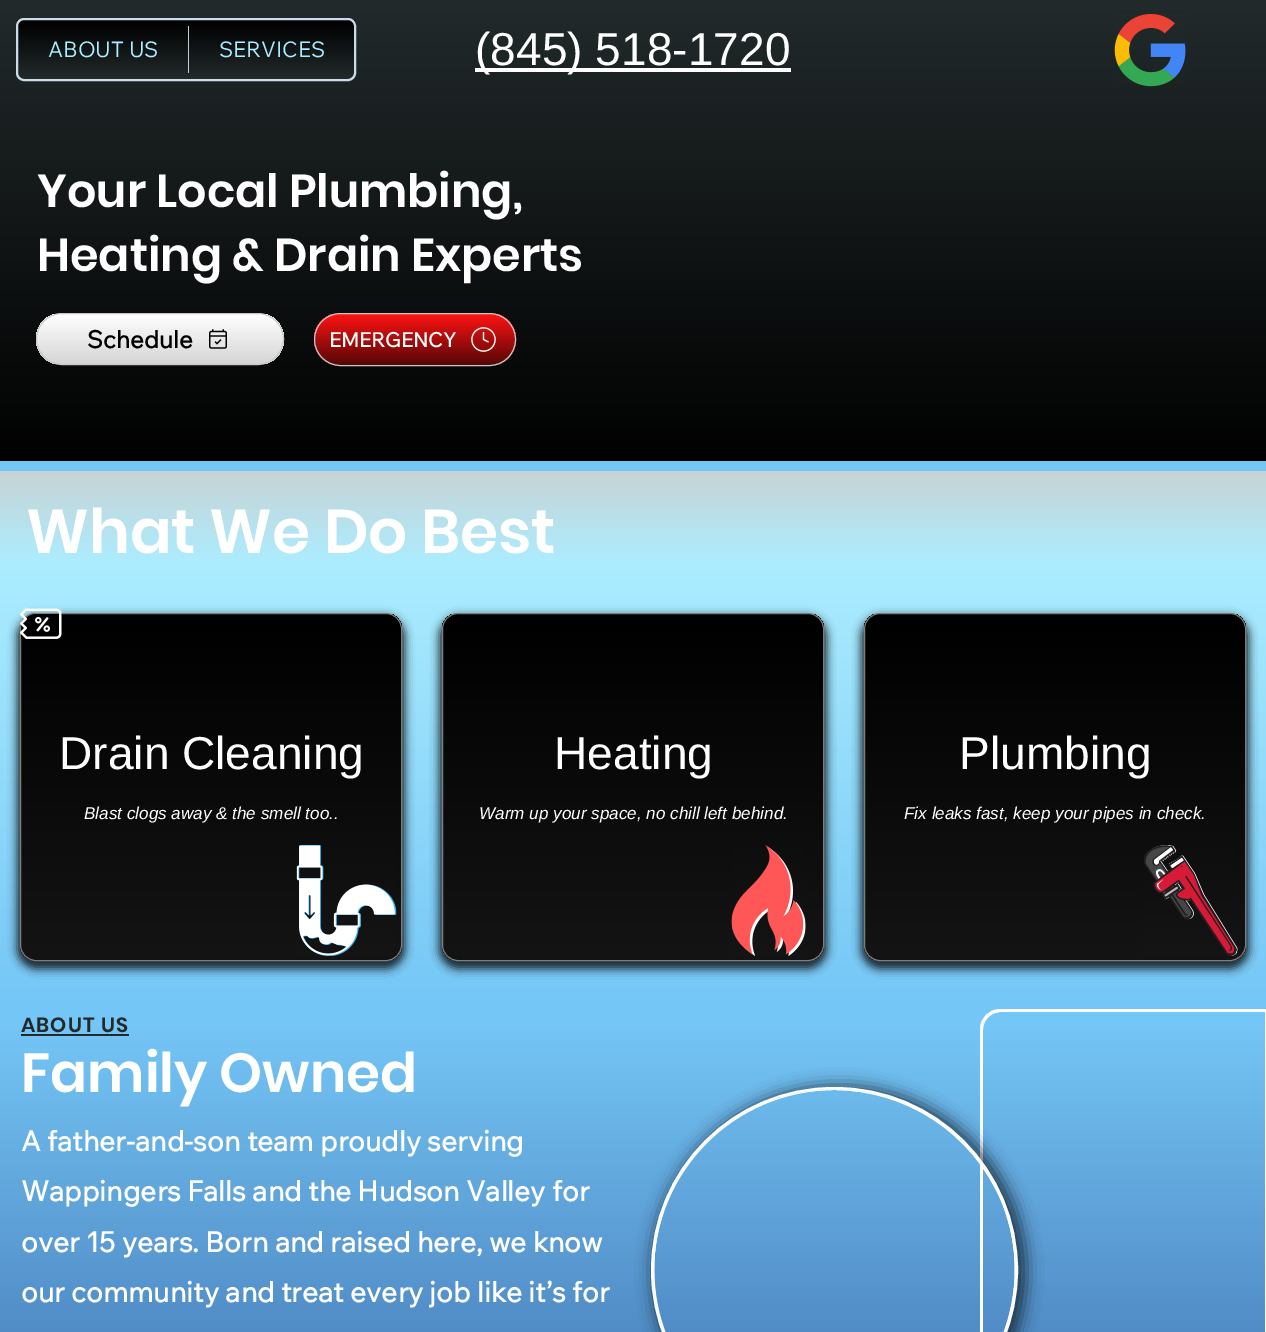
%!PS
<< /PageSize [1266 1332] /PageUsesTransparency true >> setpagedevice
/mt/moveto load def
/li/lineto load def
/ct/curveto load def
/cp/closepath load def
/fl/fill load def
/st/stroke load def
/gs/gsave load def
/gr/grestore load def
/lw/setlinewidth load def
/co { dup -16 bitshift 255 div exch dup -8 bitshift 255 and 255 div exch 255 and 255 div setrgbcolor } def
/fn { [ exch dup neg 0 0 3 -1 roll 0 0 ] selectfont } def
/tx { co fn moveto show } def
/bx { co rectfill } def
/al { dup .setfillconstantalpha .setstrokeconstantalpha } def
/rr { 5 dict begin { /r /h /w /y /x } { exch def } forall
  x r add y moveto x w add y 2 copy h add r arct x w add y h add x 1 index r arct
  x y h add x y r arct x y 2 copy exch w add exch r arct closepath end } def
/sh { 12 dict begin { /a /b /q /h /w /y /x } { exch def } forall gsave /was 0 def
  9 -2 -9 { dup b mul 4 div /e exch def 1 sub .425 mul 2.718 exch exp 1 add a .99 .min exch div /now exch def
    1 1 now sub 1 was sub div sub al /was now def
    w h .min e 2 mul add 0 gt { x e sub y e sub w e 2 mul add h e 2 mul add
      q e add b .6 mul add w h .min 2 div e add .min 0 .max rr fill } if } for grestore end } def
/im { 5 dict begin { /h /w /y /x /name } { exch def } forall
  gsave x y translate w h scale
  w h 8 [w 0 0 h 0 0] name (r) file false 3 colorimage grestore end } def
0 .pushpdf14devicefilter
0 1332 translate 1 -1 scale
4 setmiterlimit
0 0 1266 1332 16#FFFFFF bx
gs 0 0 mt 1266 0 li 1266 461 li 0 461 li cp clip newpath
<< /ShadingType 2 /ColorSpace /DeviceRGB /Coords [633 0 633 471] /Extend [true true] /Function << /FunctionType 2 /Domain [0 1] /C0 [.133 .165 .169] /C1 [0 0 0] /N 1 >> >> shfill gr
gs
16 18 340 63 8 rr clip newpath
gs 16 20 mt 356 20 li 356 79 li 16 79 li cp clip newpath
<< /ShadingType 2 /ColorSpace /DeviceRGB /Coords [186 20 186 79] /Extend [true true] /Function << /FunctionType 2 /Domain [0 1] /C0 [0 0 0] /C1 [.133 .165 .169] /N 1 >> >> shfill gr
gr
16#CBDCE9 co
2 lw
17 19 338 61 7 rr st
188 26 1 47 16#BECFDB bx
475 68 316 4 16#FFFFFF bx
(media/1.raw) 1114 14 72 73 im
gs
36 313 248 52 26 rr clip newpath
gs 36 314 mt 284 314 li 284 364 li 36 364 li cp clip newpath
<< /ShadingType 2 /ColorSpace /DeviceRGB /Coords [160 364 160 314] /Extend [true true] /Function << /FunctionType 2 /Domain [0 1] /C0 [.835 .835 .835] /C1 [1 1 1] /N 1 >> >> shfill gr
gr
16#C7C7C7 co
1 lw
36.5 313.5 247 51 25.5 rr st
(media/2.raw) 209 329 18 20 im
gs
314 313 202 53 26.5 rr clip newpath
gs 314 314 mt 516 314 li 516 365 li 314 365 li cp clip newpath
<< /ShadingType 2 /ColorSpace /DeviceRGB /Coords [415 365 415 314] /Extend [true true] /Function << /FunctionType 2 /Domain [0 1] /C0 [.333 .024 .024] /C1 [1 .075 .075] /N 1 >> >> shfill gr
gr
314.5 313.5 201 52 26 rr st
(media/3.raw) 471 327 25 25 im
0 461 1266 10 16#74C6F6 bx
gs 0 471 mt 1266 471 li 1266 563 li 0 563 li cp clip newpath
<< /ShadingType 2 /ColorSpace /DeviceRGB /Coords [633 563 633 471] /Extend [true true] /Function << /FunctionType 2 /Domain [0 1] /C0 [.675 .929 1] /C1 [.78 .827 .835] /N 1 >> >> shfill gr
gs 0 563 mt 1266 563 li 1266 1011 li 0 1011 li cp clip newpath
<< /ShadingType 2 /ColorSpace /DeviceRGB /Coords [633 1011 633 563] /Extend [true true] /Function << /FunctionType 2 /Domain [0 1] /C0 [.455 .776 .965] /C1 [.675 .929 1] /N 1 >> >> shfill gr
16#000000 co
17 616 388 353 19 4.5 .8 sh
gs
20 613 382 348 16 rr clip newpath
gs 20 614 mt 402 614 li 402 960 li 20 960 li cp clip newpath
<< /ShadingType 2 /ColorSpace /DeviceRGB /Coords [211 960 211 614] /Extend [true true] /Function << /FunctionType 2 /Domain [0 1] /C0 [.078 .078 .078] /C1 [0 0 0] /N 1 >> >> shfill gr
gr
16#817B7B co
20.5 613.5 381 347 15.5 rr st
(media/4.raw) 20 608 42 31 im
(media/5.raw) 296 845 101 111 im
16#000000 co
439 616 388 353 19 4.5 .8 sh
gs
442 613 382 348 16 rr clip newpath
gs 442 614 mt 824 614 li 824 960 li 442 960 li cp clip newpath
<< /ShadingType 2 /ColorSpace /DeviceRGB /Coords [633 960 633 614] /Extend [true true] /Function << /FunctionType 2 /Domain [0 1] /C0 [.078 .078 .078] /C1 [0 0 0] /N 1 >> >> shfill gr
gr
16#817B7B co
442.5 613.5 381 347 15.5 rr st
(media/6.raw) 731 845 75 111 im
16#000000 co
861 616 388 353 19 4.5 .8 sh
gs
864 613 382 348 16 rr clip newpath
gs 864 614 mt 1246 614 li 1246 960 li 864 960 li cp clip newpath
<< /ShadingType 2 /ColorSpace /DeviceRGB /Coords [1055 960 1055 614] /Extend [true true] /Function << /FunctionType 2 /Domain [0 1] /C0 [.078 .078 .078] /C1 [0 0 0] /N 1 >> >> shfill gr
gr
16#817B7B co
864.5 613.5 381 347 15.5 rr st
(media/7.raw) 1143 845 95 111 im
gs 0 1011 mt 1265 1011 li 1265 1332 li 0 1332 li cp clip newpath
<< /ShadingType 2 /ColorSpace /DeviceRGB /Coords [633 1011 633 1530] /Extend [true true] /Function << /FunctionType 3 /Domain [0 1] /Functions [<< /FunctionType 2 /Domain [0 1] /C0 [.455 .776 .965] /C1 [.455 .776 .965] /N 1 >> << /FunctionType 2 /Domain [0 1] /C0 [.455 .776 .965] /C1 [.227 .4 .655] /N 1 >>] /Bounds [.03] /Encode [0 1 0 1] >> >> shfill gr
16#FFFFFF co
999 1012 mt 1265 1012 li 1265 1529 li 1266 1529 li 1266 1011 li 1000 1011 li 995 1011 990 1013 987 1016 ct 990 1014 994 1012 999 1012 ct cp fl
1001 1012 mt 1266 1012 li 1266 1011 li 1000 1011 li 990 1011 982 1019 982 1029 ct 982 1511 li 982 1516 984 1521 987 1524 ct 985 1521 983 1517 983 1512 ct 983 1030 li 983 1020 991 1012 1001 1012 ct cp fl
2 lw
1000 1010 mt 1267 1010 li 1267 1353 li 1000 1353 li 989.5 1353 981 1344.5 981 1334 ct 981 1029 li 981 1018.5 989.5 1010 1000 1010 ct cp st
gs
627 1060 mt 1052 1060 li 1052 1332 li 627 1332 li cp 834 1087 mt 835 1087 li 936 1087 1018 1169 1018 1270 ct 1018 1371 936 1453 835 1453 ct 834 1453 li 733 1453 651 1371 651 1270 ct 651 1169 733 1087 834 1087 ct cp eoclip newpath
16#000000 co
652 1085 375 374 187 8 .6 sh
gr
707 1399 mt 778 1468 893 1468 963 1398 ct 1034 1327 1033 1214 964 1143 ct 1032 1214 1032 1327 962 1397 ct 892 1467 778 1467 707 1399 ct cp fl
705 1143 mt 636 1214 635 1327 706 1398 ct 776 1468 891 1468 962 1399 ct 891 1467 777 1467 707 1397 ct 637 1327 637 1214 705 1143 ct cp fl
833 1090 mt 906 1090 972 1133 1001 1201 ct 1029 1267 1014 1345 964 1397 ct 1033 1326 1034 1213 963 1142 ct 893 1072 778 1072 707 1141 ct 740 1109 784 1090 833 1090 ct cp fl
835 1090 mt 882 1090 928 1108 962 1141 ct 891 1072 776 1072 706 1142 ct 635 1213 636 1326 705 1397 ct 673 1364 654 1320 654 1271 ct 654 1171 735 1090 835 1090 ct cp fl
652 1088 365 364 182 rr st
21 1034 108 2 16#222A2B bx
(ABOUT US) 48 57 /WixMadeforText-Regular 21.5 16#ACEDFF tx
(SERVICES) 219 57 /WixMadeforText-Regular 21.5 16#ACEDFF tx
(\(845\) 518-1720) 475 65 /LiberationSans-Regular 46.1 16#FFFFFF tx
(Your Local Plumbing,) 37 207 /Poppins-SemiBold 46.1 16#FFFFFF tx
(Heating & Drain Experts) 37 271 /Poppins-SemiBold 46.1 16#FFFFFF tx
(Schedule) 87 348 /WixMadeforText-Bold 24 16#000000 tx
(EMERGENCY) 329 347 /WixMadeforText-Bold 20 16#FFFFFF tx
(What We Do Best) 26 553 /Poppins-SemiBold 61.5 16#FFFFFF tx
(Drain Cleaning) 59 769 /LiberationSans-Regular 46.1 16#FFFFFF tx
(Blast clogs away & the smell too..) 84 819 /LiberationSans-Italic 17.1 16#FFFFFF tx
(Heating) 554 769 /LiberationSans-Regular 46.1 16#FFFFFF tx
(Warm up your space, no chill left behind.) 479 819 /LiberationSans-Italic 17.1 16#FFFFFF tx
(Plumbing) 959 769 /LiberationSans-Regular 46.1 16#FFFFFF tx
(Fix leaks fast, keep your pipes in check.) 904 819 /LiberationSans-Italic 17.1 16#FFFFFF tx
/Poppins-SemiBold 20.5 fn
16#222A2B co
21 1032 mt 1 0 (ABOUT US) ashow
(Family Owned) 21 1092 /Poppins-SemiBold 54.75 16#FFFFFF tx
(A father-and-son team proudly serving) 21 1151 /WixMadeforText-Bold 28 16#FFFFFF tx
(Wappingers Falls and the Hudson Valley for) 21 1201 /WixMadeforText-Bold 28 16#FFFFFF tx
(over 15 years. Born and raised here, we know) 21 1252 /WixMadeforText-Bold 28 16#FFFFFF tx
(our community and treat every job like it’s for) 21 1302 /WixMadeforText-Bold 28 16#FFFFFF tx
.poppdf14devicefilter showpage
